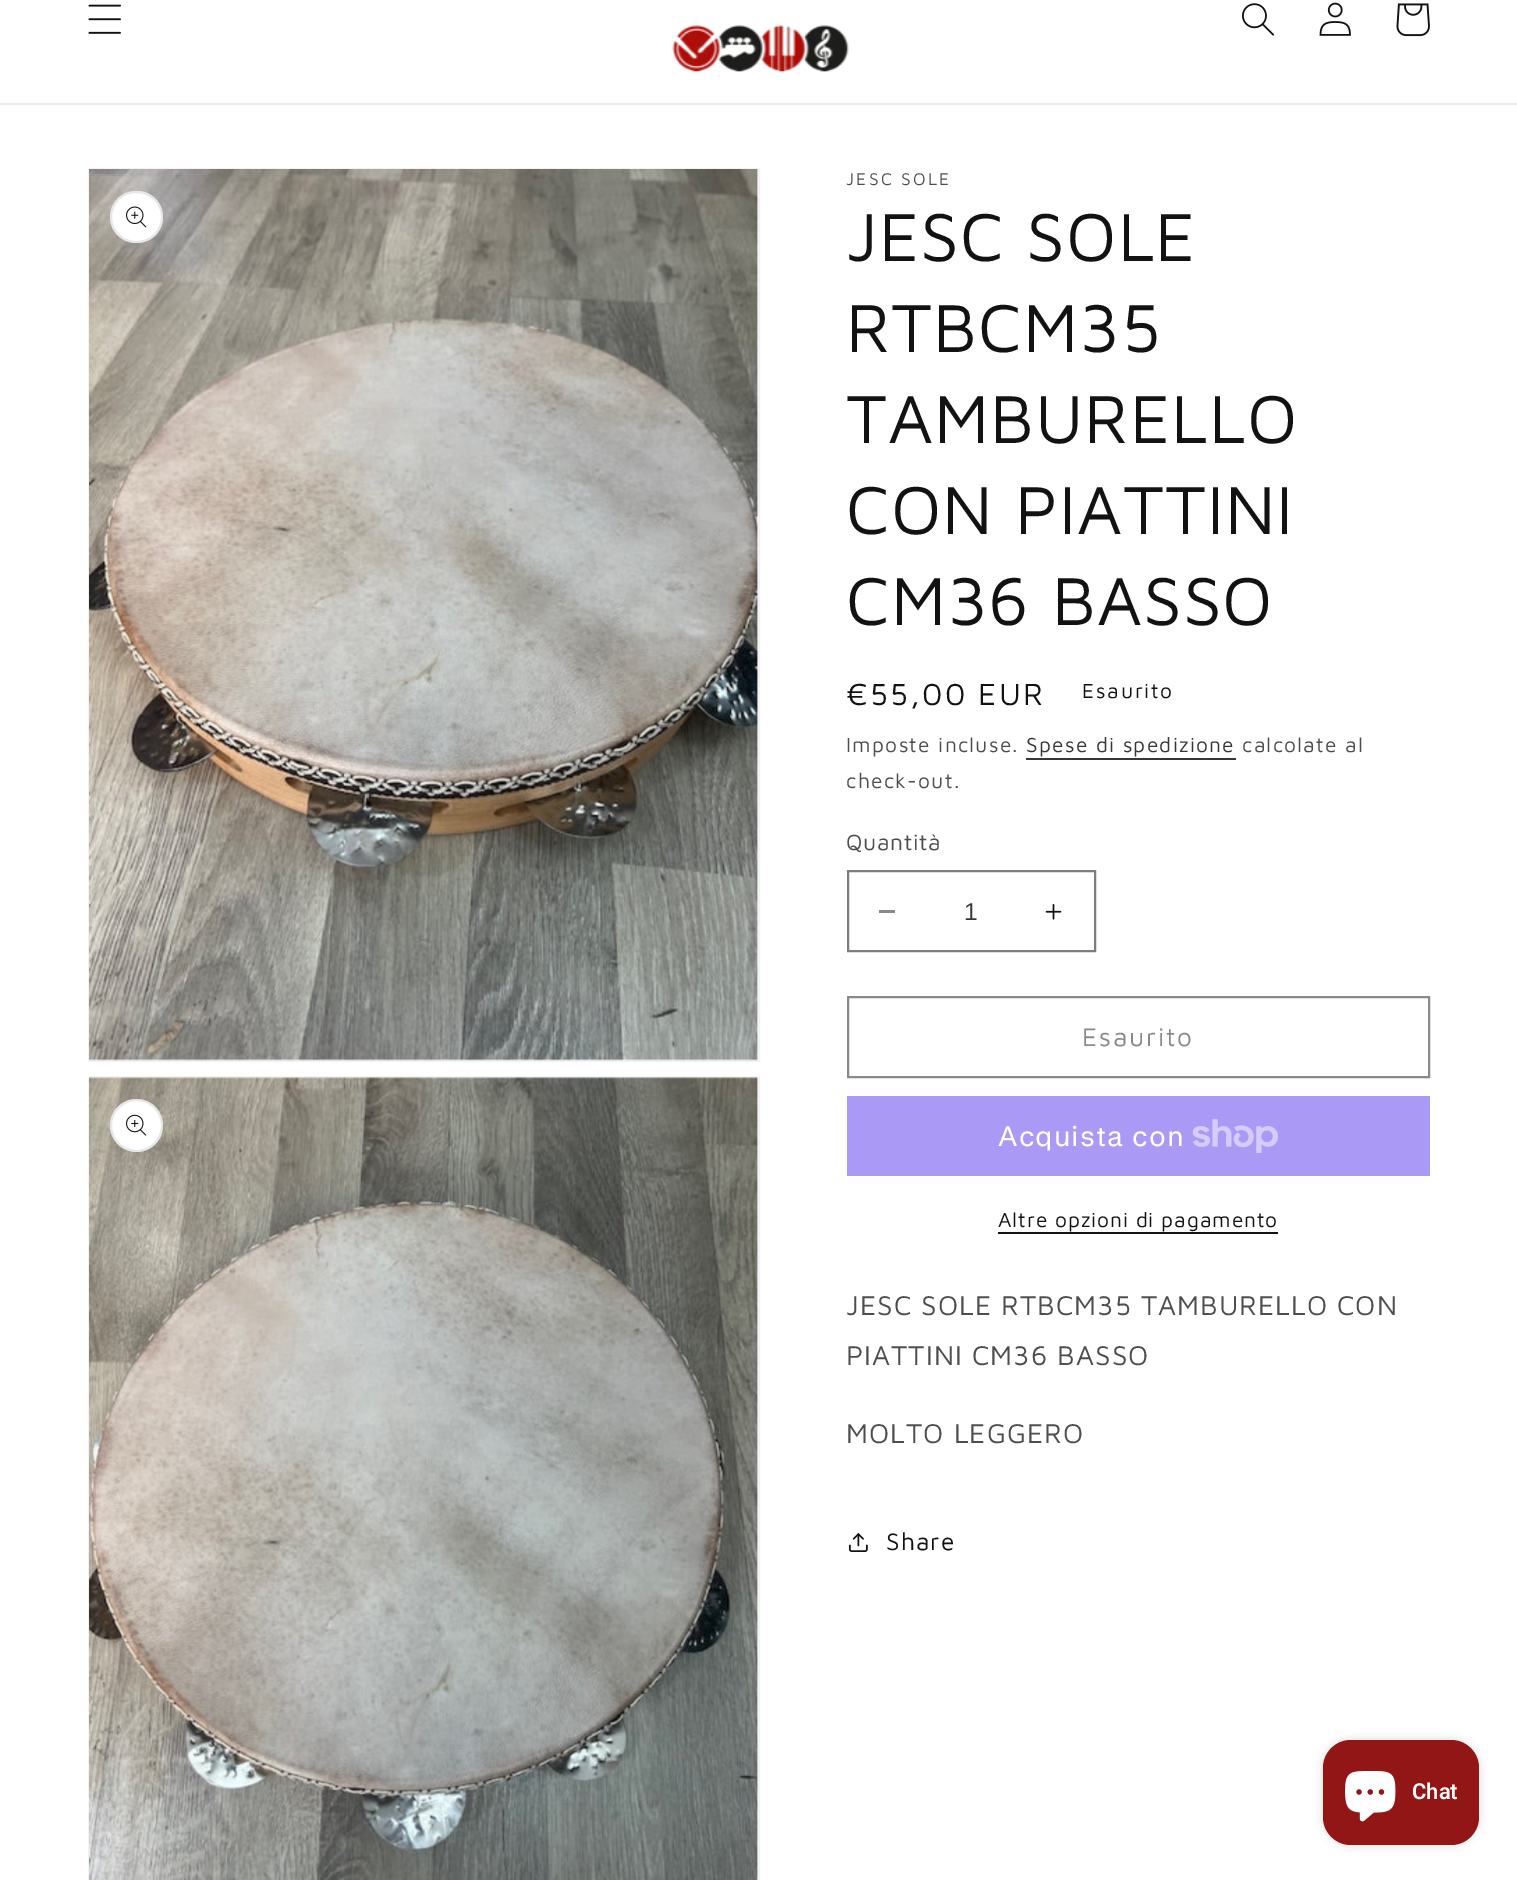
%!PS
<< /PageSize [1517 1880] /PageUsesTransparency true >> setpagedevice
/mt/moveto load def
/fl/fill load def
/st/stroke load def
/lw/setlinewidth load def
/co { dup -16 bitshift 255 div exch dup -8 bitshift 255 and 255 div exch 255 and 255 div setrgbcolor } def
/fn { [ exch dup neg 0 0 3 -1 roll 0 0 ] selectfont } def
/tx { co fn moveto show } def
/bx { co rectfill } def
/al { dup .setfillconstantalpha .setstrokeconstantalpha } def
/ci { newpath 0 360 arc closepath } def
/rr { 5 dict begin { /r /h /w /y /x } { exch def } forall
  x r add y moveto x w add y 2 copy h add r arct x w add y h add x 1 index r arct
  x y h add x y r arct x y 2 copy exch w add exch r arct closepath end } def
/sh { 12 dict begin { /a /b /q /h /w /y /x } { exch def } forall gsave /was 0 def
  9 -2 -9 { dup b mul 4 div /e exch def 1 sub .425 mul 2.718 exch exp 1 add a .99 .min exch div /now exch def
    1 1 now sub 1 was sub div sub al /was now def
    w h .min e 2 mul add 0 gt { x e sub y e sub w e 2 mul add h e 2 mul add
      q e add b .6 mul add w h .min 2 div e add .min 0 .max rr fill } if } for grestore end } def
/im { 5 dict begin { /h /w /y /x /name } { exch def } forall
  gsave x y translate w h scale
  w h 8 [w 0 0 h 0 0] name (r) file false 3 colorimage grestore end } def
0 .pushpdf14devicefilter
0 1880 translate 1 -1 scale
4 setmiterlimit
0 0 1517 1880 16#FFFFFF bx
0 103 1517 2 16#ECECEC bx
(media/1.raw) 88 4 33 30 im
(media/2.raw) 1242 3 32 33 im
(media/3.raw) 1319 2 32 34 im
(media/4.raw) 1396 3 34 34 im
(media/5.raw) 672 25 177 47 im
16#F3F3F3 co
2 lw
89 169 670 892 rectstroke
(media/6.raw) 89 169 669 892 im
16#FFFFFF co
110 191 53 52 26 rr fl
0.1 al
16#121212 co
111 192 51 50 25 rr st
1 al
(media/7.raw) 126 206 21 22 im
16#F3F3F3 co
89 1077 670 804 rectstroke
(media/8.raw) 89 1077 669 803 im
16#FFFFFF co
136.5 1125.5 26.5 ci fl
0.1 al
16#121212 co
136.5 1125.5 25.5 ci st
1 al
(media/9.raw) 126 1114 21 22 im
1026 758 210 2 16#363636 bx
879 910 16 3 16#898989 bx
(media/10.raw) 1045 903 17 17 im
16#7D7D7D co
848 871 247 80 rectstroke
16#898989 co
848 997 581 80 rectstroke
847 1096 583 80 16#AA99F5 bx
(media/11.raw) 1192 1119 86 34 im
998 1232 280 2 16#121212 bx
(media/12.raw) 848 1533 20 19 im
16#000000 co
1323 1740 156 105 28 4.5 .15 sh
16#931616 co
1323 1740 156 105 28 rr fl
(media/13.raw) 1345 1771 51 51 im
/MavenPro-Regular 17.5 fn
16#4D4D4D co
846 185 mt 2.25 0 (JESC SOLE) ashow
/MavenPro-Regular 70 fn
16#121212 co
846 261 mt 1.05 0 (JESC SOLE) ashow
846 352 mt 1.05 0 (RTBCM35) ashow
846 443 mt 1.05 0 (TAMBURELLO) ashow
846 534 mt 1.05 0 (CON PIATTINI) ashow
846 625 mt 1.05 0 (CM36 BASSO) ashow
/MavenPro-Regular 31.5 fn
846 705 mt 2.25 0 (€55,00 EUR) ashow
/MavenPro-Regular 21 fn
1082 698 mt 1.75 0 (Esaurito) ashow
16#4D4D4D co
846 752 mt 1.25 0 (Imposte incluse.) ashow
16#363636 co
1026 752 mt 1.25 0 (Spese di spedizione) ashow
16#4D4D4D co
1242 752 mt 1.25 0 (calcolate al) ashow
846 788 mt 1.25 0 (check-out.) ashow
/MavenPro-Regular 22.75 fn
846 850 mt .75 0 (Quantità) ashow
(1) 964 920 /LiberationSans-Regular 24.5 16#363636 tx
/MavenPro-Regular 26.25 fn
16#898989 co
1082 1046 mt 1.75 0 (Esaurito) ashow
/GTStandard-Regular 28 fn
16#FFFFFF co
998 1146 mt 1.05 0 (Acquista con) ashow
/MavenPro-Regular 21 fn
16#121212 co
998 1227 mt .9 0 (Altre opzioni di pagamento) ashow
/MavenPro-Regular 28 fn
16#4D4D4D co
846 1315 mt 1.05 0 (JESC SOLE RTBCM35 TAMBURELLO CON) ashow
846 1365 mt 1.05 0 (PIATTINI CM36 BASSO) ashow
846 1443 mt 1.05 0 (MOLTO LEGGERO) ashow
/MavenPro-Regular 24.5 fn
16#121212 co
886 1550 mt 1.05 0 (Share) ashow
(Chat) 1412 1799 /Roboto-SemiBold 22 16#FFFFFF tx
.poppdf14devicefilter showpage
